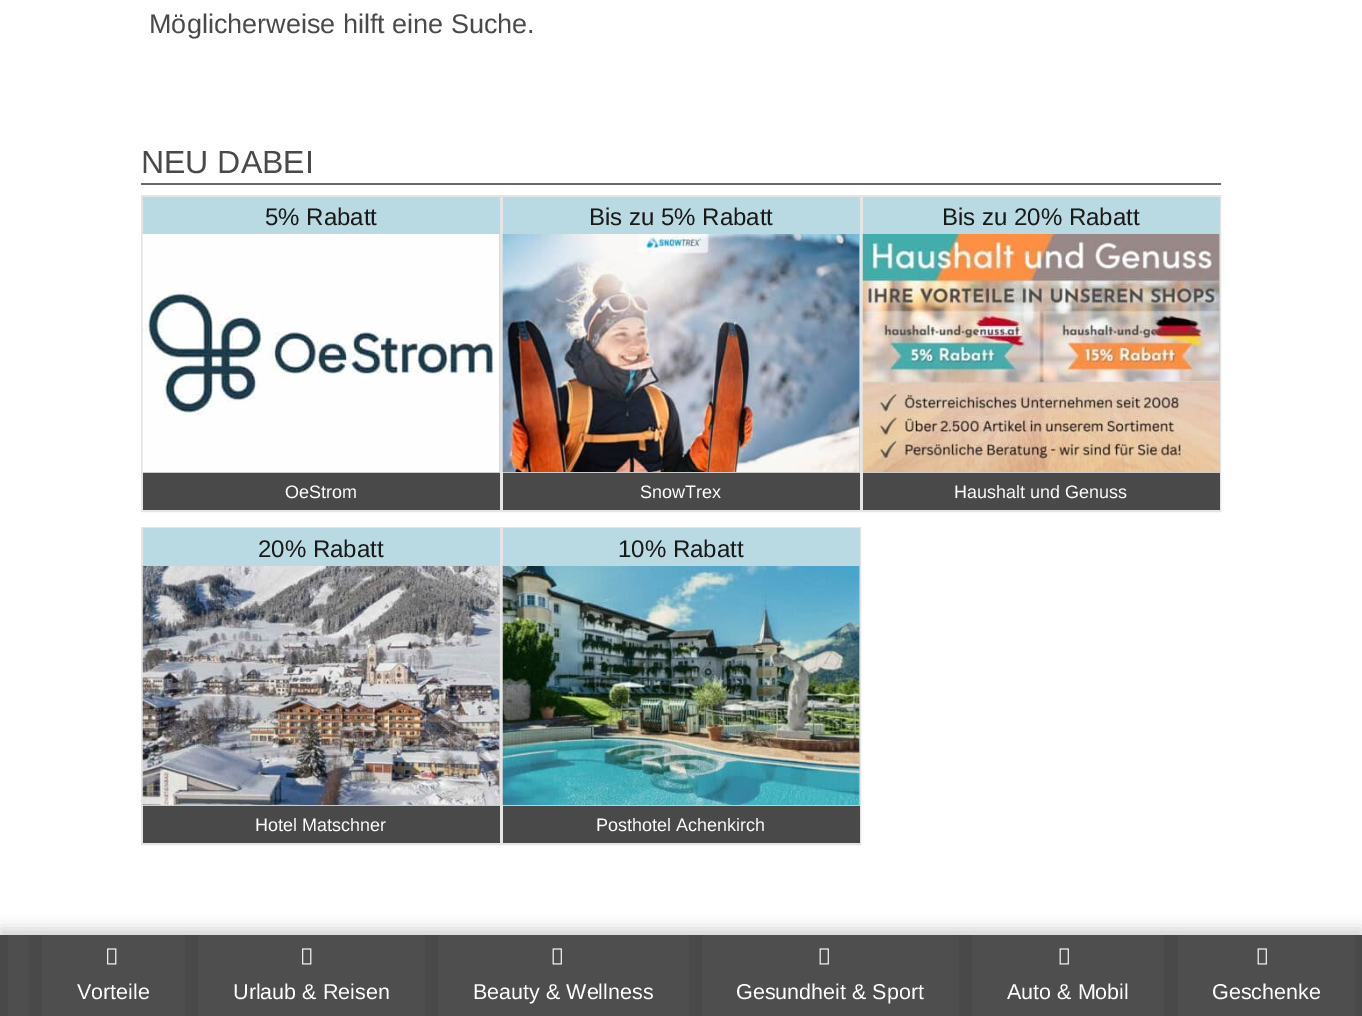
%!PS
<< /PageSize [1362 1016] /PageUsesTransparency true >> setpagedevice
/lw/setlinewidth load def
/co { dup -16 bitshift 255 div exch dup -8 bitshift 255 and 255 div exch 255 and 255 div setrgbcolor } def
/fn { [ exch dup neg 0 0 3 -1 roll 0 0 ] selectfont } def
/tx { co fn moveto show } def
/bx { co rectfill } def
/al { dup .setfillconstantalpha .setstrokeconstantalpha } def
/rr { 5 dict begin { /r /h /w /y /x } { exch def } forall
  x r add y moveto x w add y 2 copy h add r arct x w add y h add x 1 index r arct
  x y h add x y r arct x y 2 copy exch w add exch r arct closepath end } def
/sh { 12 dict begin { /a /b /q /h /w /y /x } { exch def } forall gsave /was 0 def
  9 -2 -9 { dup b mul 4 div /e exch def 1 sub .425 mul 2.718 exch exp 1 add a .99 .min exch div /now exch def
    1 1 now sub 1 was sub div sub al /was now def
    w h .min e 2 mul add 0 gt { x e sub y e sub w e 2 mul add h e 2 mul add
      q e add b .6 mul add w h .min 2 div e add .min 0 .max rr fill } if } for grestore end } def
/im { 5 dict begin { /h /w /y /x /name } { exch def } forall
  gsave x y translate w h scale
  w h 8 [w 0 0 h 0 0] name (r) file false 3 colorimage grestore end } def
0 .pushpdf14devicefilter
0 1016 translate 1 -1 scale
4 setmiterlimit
0 0 1362 1016 16#FFFFFF bx
141 183 1080 2 16#686868 bx
16#E5E5E5 co
2 lw
142 196 358 315 rectstroke
143 197 357 37 16#BADAE3 bx
143 234 357 239 16#CCCCCC bx
(media/1.raw) 142 234 358 238 im
143 473 357 37 16#494949 bx
16#E5E5E5 co
502 196 358 315 rectstroke
503 234 357 239 16#CCCCCC bx
(media/2.raw) 502 233 358 239 im
503 197 357 37 16#BADAE3 bx
503 473 357 37 16#494949 bx
16#E5E5E5 co
862 196 358 315 rectstroke
863 234 357 239 16#CCCCCC bx
(media/3.raw) 862 233 358 239 im
863 197 357 37 16#BADAE3 bx
863 473 357 37 16#494949 bx
16#E5E5E5 co
142 528 358 316 rectstroke
143 566 357 240 16#CCCCCC bx
(media/4.raw) 142 565 358 240 im
143 528 357 38 16#BADAE3 bx
143 806 357 37 16#494949 bx
16#E5E5E5 co
502 528 358 316 rectstroke
503 566 357 240 16#CCCCCC bx
(media/5.raw) 502 565 358 240 im
503 528 357 38 16#BADAE3 bx
503 806 357 37 16#494949 bx
16#000000 co
0 929 1362 82 0 7.5 .18 sh
0 935 1362 81 16#494949 bx
8 935 21 81 16#4E4E4E bx
42 935 143 81 16#4E4E4E bx
(media/6.raw) 107 948 10 17 im
198 935 227 81 16#4E4E4E bx
(media/6.raw) 302 948 10 17 im
438 935 251 81 16#4E4E4E bx
(media/7.raw) 552 948 10 17 im
702 935 257 81 16#4E4E4E bx
(media/7.raw) 819 948 10 17 im
972 935 192 81 16#4E4E4E bx
(media/7.raw) 1059 948 10 17 im
1178 935 177 81 16#4E4E4E bx
(media/7.raw) 1257 948 10 17 im
(Möglicherweise hilft eine Suche.) 149 33 /LiberationSans-Regular 27 16#494949 tx
(NEU DABEI) 141 173 /LiberationSans-Regular 32 16#494949 tx
(5% Rabatt) 265 225 /LiberationSans-Regular 24 16#191919 tx
(OeStrom) 285 498 /LiberationSans-Regular 18 16#FFFFFF tx
(Bis zu 5% Rabatt) 589 225 /LiberationSans-Regular 24 16#191919 tx
(SnowTrex) 640 498 /LiberationSans-Regular 18 16#FFFFFF tx
(Bis zu 20% Rabatt) 942 225 /LiberationSans-Regular 24 16#191919 tx
(Haushalt und Genuss) 954 498 /LiberationSans-Regular 18 16#FFFFFF tx
(20% Rabatt) 258 557 /LiberationSans-Regular 24 16#191919 tx
(Hotel Matschner) 255 831 /LiberationSans-Regular 18 16#FFFFFF tx
(10% Rabatt) 618 557 /LiberationSans-Regular 24 16#191919 tx
(Posthotel Achenkirch) 596 831 /LiberationSans-Regular 18 16#FFFFFF tx
(Vorteile) 77 999 /LiberationSans-Regular 21.5 16#FFFFFF tx
(Urlaub & Reisen) 233 999 /LiberationSans-Regular 21.5 16#FFFFFF tx
(Beauty & Wellness) 473 999 /LiberationSans-Regular 21.5 16#FFFFFF tx
(Gesundheit & Sport) 736 999 /LiberationSans-Regular 21.5 16#FFFFFF tx
(Auto & Mobil) 1007 999 /LiberationSans-Regular 21.5 16#FFFFFF tx
(Geschenke) 1212 999 /LiberationSans-Regular 21.5 16#FFFFFF tx
.poppdf14devicefilter showpage
